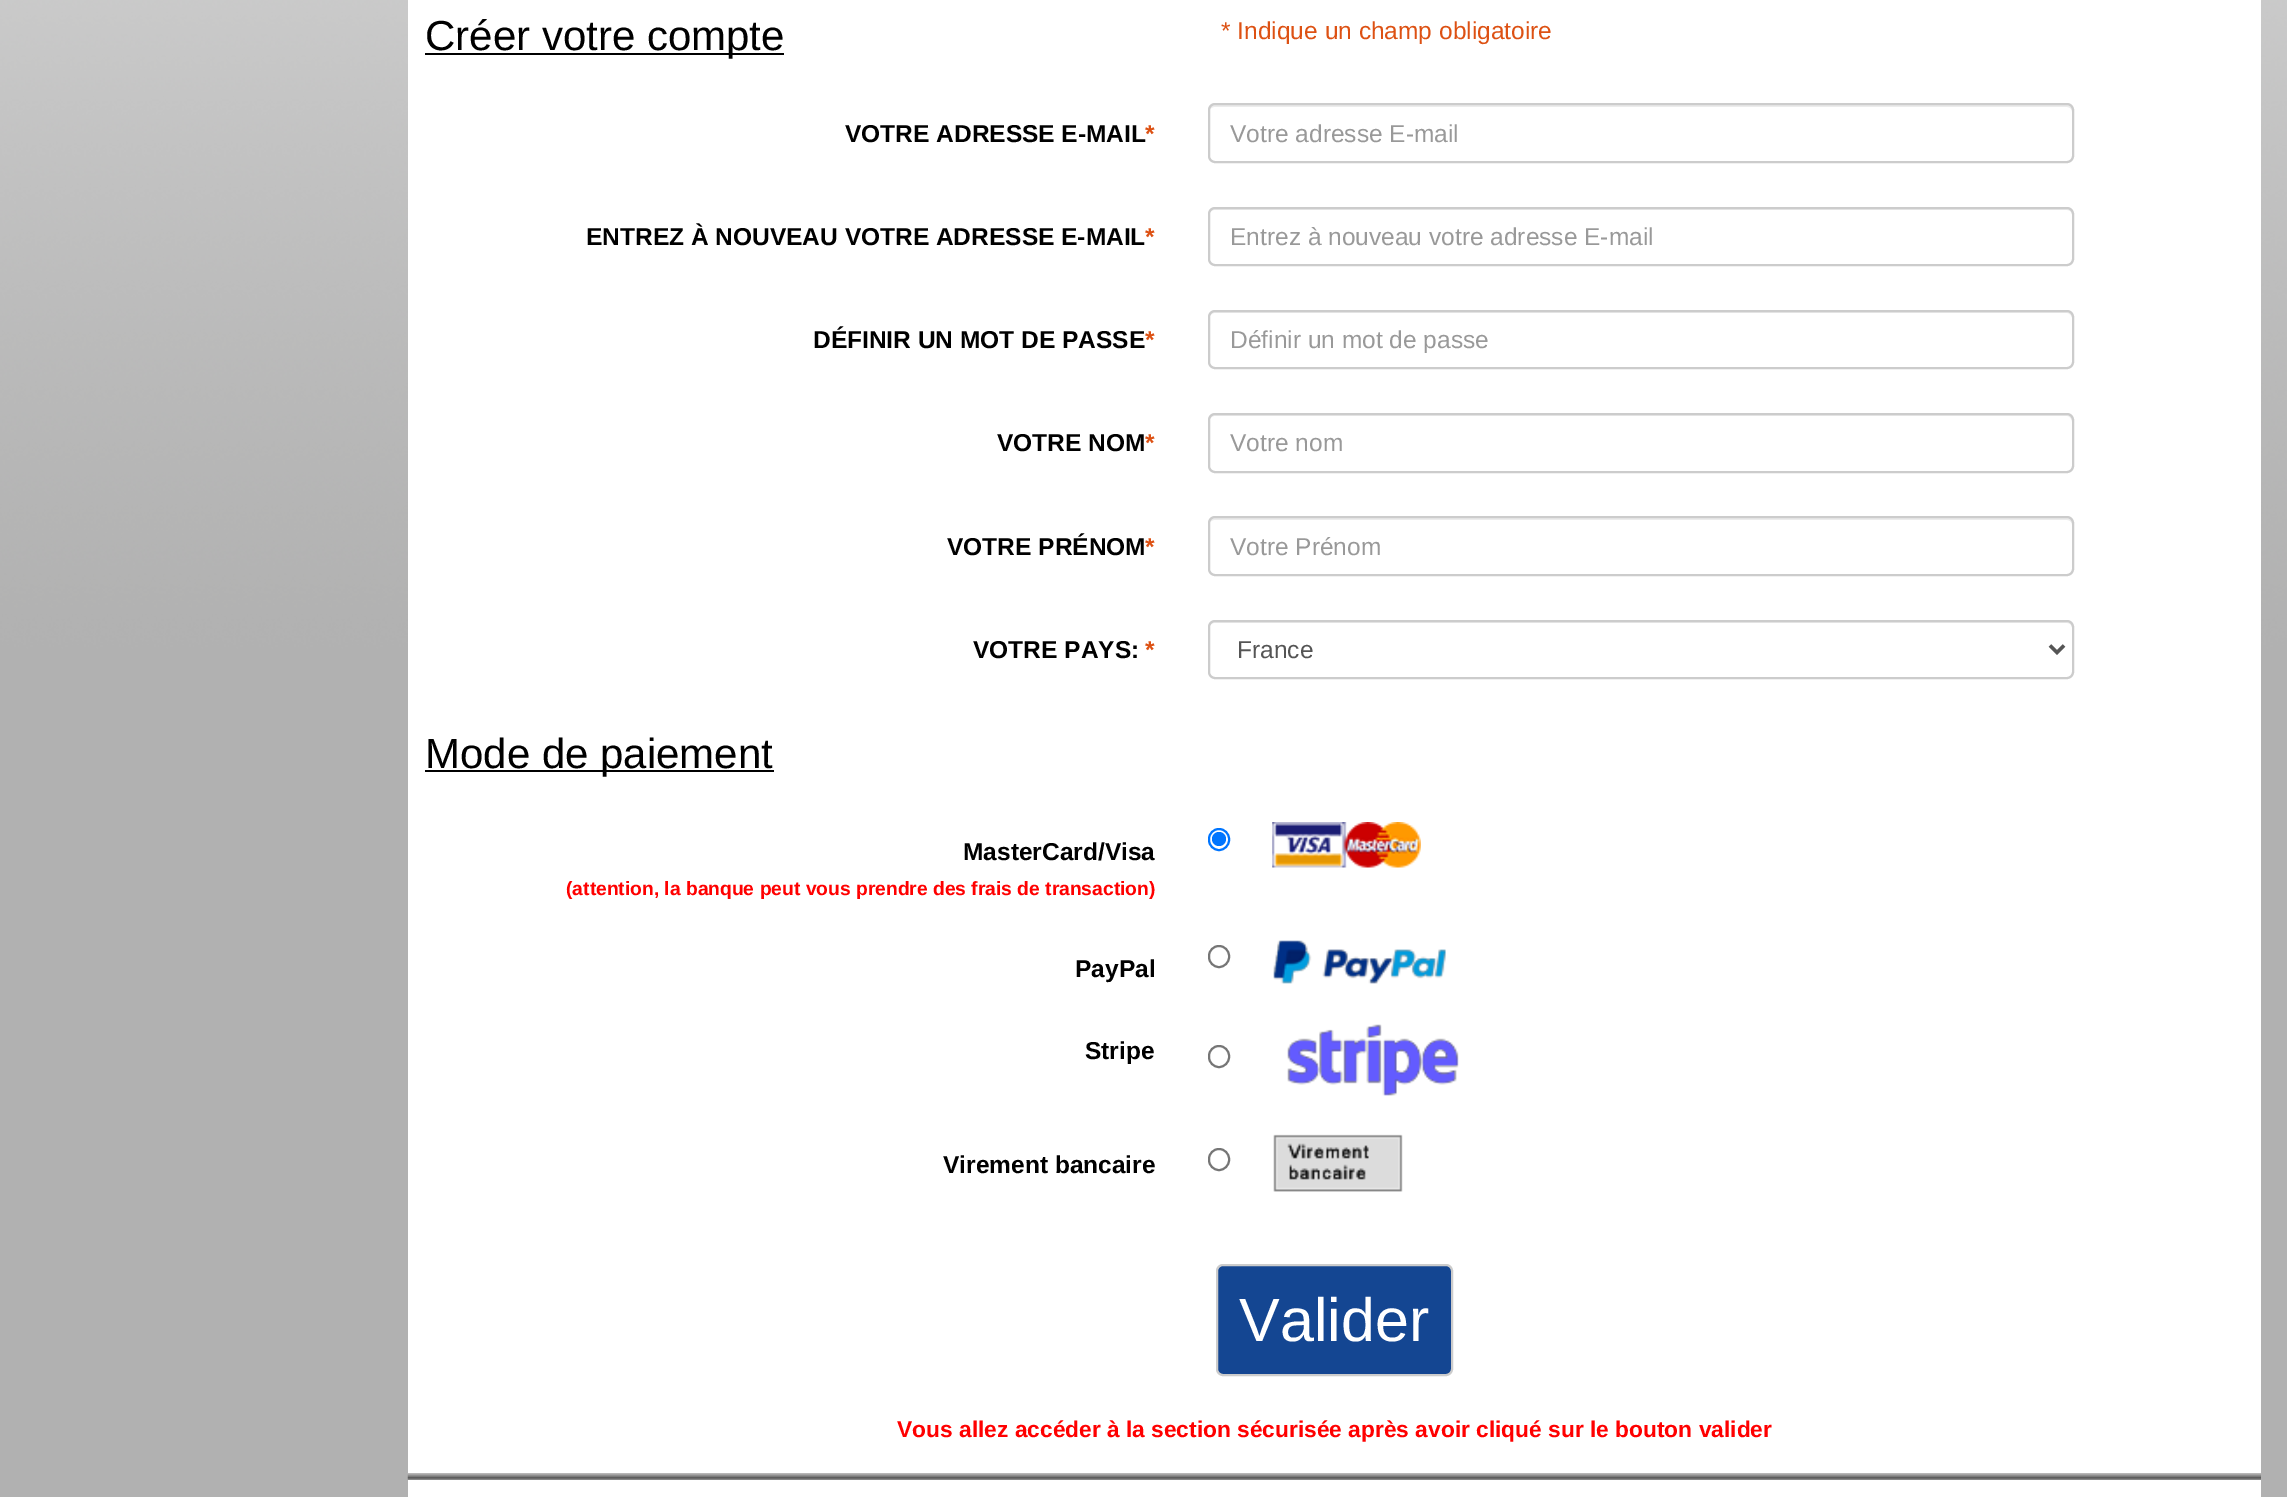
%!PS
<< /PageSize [2287 1497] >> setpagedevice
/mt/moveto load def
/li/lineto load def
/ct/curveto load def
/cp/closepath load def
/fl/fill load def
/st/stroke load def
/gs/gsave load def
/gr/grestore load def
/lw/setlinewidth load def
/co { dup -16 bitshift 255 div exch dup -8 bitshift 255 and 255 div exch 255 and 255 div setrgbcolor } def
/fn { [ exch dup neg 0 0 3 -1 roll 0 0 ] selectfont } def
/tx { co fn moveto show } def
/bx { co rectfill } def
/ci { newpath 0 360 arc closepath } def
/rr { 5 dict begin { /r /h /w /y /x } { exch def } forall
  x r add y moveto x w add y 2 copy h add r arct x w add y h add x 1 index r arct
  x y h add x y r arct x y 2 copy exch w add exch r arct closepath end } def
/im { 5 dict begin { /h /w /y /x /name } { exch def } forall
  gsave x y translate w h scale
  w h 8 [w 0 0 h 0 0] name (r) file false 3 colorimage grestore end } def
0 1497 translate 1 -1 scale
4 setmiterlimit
0 0 2287 1497 16#FFFFFF bx
(media/1.raw) 0 0 2287 1497 im
408 0 1853 1497 16#FFFFFF bx
425 53 359 2 16#000000 bx
16#ECECEC co
1214 107 mt 2067 107 li 2070 107 2072 109 2072 112 ct 2072 110 li 2072 107 2070 105 2067 105 ct 1214 105 li 1211 105 1209 107 1209 110 ct 1209 112 li 1209 109 1212 107 1214 107 ct cp fl
16#CCCCCC co
2 lw
1209 104 864 58 6 rr st
16#ECECEC co
1214 210 mt 2067 210 li 2070 210 2072 212 2072 215 ct 2072 213 li 2072 210 2070 208 2067 208 ct 1214 208 li 1211 208 1209 210 1209 213 ct 1209 215 li 1209 212 1212 210 1214 210 ct cp fl
16#CCCCCC co
1209 208 864 57 6 rr st
16#ECECEC co
1214 313 mt 2067 313 li 2070 313 2072 316 2072 318 ct 2072 317 li 2072 314 2070 312 2067 312 ct 1214 312 li 1211 312 1209 314 1209 317 ct 1209 318 li 1209 316 1212 313 1214 313 ct cp fl
16#CCCCCC co
1209 311 864 57 6 rr st
16#ECECEC co
1214 416 mt 2067 416 li 2070 416 2072 419 2072 422 ct 2072 420 li 2072 417 2070 415 2067 415 ct 1214 415 li 1211 415 1209 417 1209 420 ct 1209 422 li 1209 419 1212 416 1214 416 ct cp fl
16#CCCCCC co
1209 414 864 58 6 rr st
16#ECECEC co
1214 520 mt 2067 520 li 2070 520 2072 522 2072 525 ct 2072 523 li 2072 520 2070 518 2067 518 ct 1214 518 li 1211 518 1209 520 1209 523 ct 1209 525 li 1209 522 1212 520 1214 520 ct cp fl
16#CCCCCC co
1209 517 864 58 6 rr st
16#ECECEC co
1214 623 mt 2067 623 li 2070 623 2072 625 2072 628 ct 2072 626 li 2072 623 2070 621 2067 621 ct 1214 621 li 1211 621 1209 623 1209 626 ct 1209 628 li 1209 625 1212 623 1214 623 ct cp fl
16#CCCCCC co
1209 621 864 57 6 rr st
16#555555 co
3.5 lw
2050 645.5 mt 2057 652.5 li 2064 645.5 li st
425 770 349 2 16#000000 bx
16#0075FF co
2 lw
1209 829 20 21 10 rr st
1219 839 7 ci fl
(media/2.raw) 1272 822 149 46 im
16#767676 co
1209 946 20 21 10 rr st
(media/3.raw) 1273 940 173 44 im
1209 1046 20 21 10 rr st
(media/4.raw) 1287 1024 172 72 im
1209 1149 20 21 10 rr st
(media/5.raw) 1273 1134 130 58 im
16#144692 co
1217 1265 235 110 6 rr gs fl gr
16#CCCCCC co
st
(media/6.raw) 407 1473 1854 7 im
(Créer votre compte) 425 50 /LiberationSans-Regular 42 16#000000 tx
(* Indique un champ obligatoire) 1221 39 /LiberationSans-Regular 24.5 16#DD5113 tx
(VOTRE ADRESSE E-MAIL) 845 142 /LiberationSans-Bold 24.5 16#000000 tx
(*) 1145 142 /LiberationSans-Bold 24.5 16#DD5113 tx
(Votre adresse E-mail) 1230 142 /LiberationSans-Regular 24.5 16#999999 tx
(ENTREZ À NOUVEAU VOTRE ADRESSE E-MAIL) 586 245 /LiberationSans-Bold 24.5 16#000000 tx
(*) 1145 245 /LiberationSans-Bold 24.5 16#DD5113 tx
(Entrez à nouveau votre adresse E-mail) 1230 245 /LiberationSans-Regular 24.5 16#999999 tx
(DÉFINIR UN MOT DE PASSE) 813 348 /LiberationSans-Bold 24.5 16#000000 tx
(*) 1145 348 /LiberationSans-Bold 24.5 16#DD5113 tx
(Définir un mot de passe) 1230 348 /LiberationSans-Regular 24.5 16#999999 tx
(VOTRE NOM) 997 451 /LiberationSans-Bold 24.5 16#000000 tx
(*) 1145 451 /LiberationSans-Bold 24.5 16#DD5113 tx
(Votre nom) 1230 451 /LiberationSans-Regular 24.5 16#999999 tx
(VOTRE PRÉNOM) 947 555 /LiberationSans-Bold 24.5 16#000000 tx
(*) 1145 555 /LiberationSans-Bold 24.5 16#DD5113 tx
(Votre Prénom) 1230 555 /LiberationSans-Regular 24.5 16#999999 tx
(VOTRE PAYS:) 973 658 /LiberationSans-Bold 24.5 16#000000 tx
(*) 1145 658 /LiberationSans-Bold 24.5 16#DD5113 tx
(France) 1237 658 /LiberationSans-Regular 24.5 16#555555 tx
(Mode de paiement) 425 768 /LiberationSans-Regular 42 16#000000 tx
(MasterCard/Visa) 963 860 /LiberationSans-Bold 24.5 16#000000 tx
(\(attention, la banque peut vous prendre des frais de transaction\)) 566 895 /LiberationSans-Bold 19.25 16#FF0000 tx
(PayPal) 1075 977 /LiberationSans-Bold 24.5 16#000000 tx
(Stripe) 1085 1059 /LiberationSans-Bold 24.5 16#000000 tx
(Virement bancaire) 943 1173 /LiberationSans-Bold 24.5 16#000000 tx
(Valider) 1239 1341 /LiberationSans-Regular 61 16#FFFFFF tx
(Vous allez accéder à la section sécurisée après avoir cliqué sur le bouton valider) 897 1437 /LiberationSans-Bold 22.75 16#FF0000 tx
showpage
